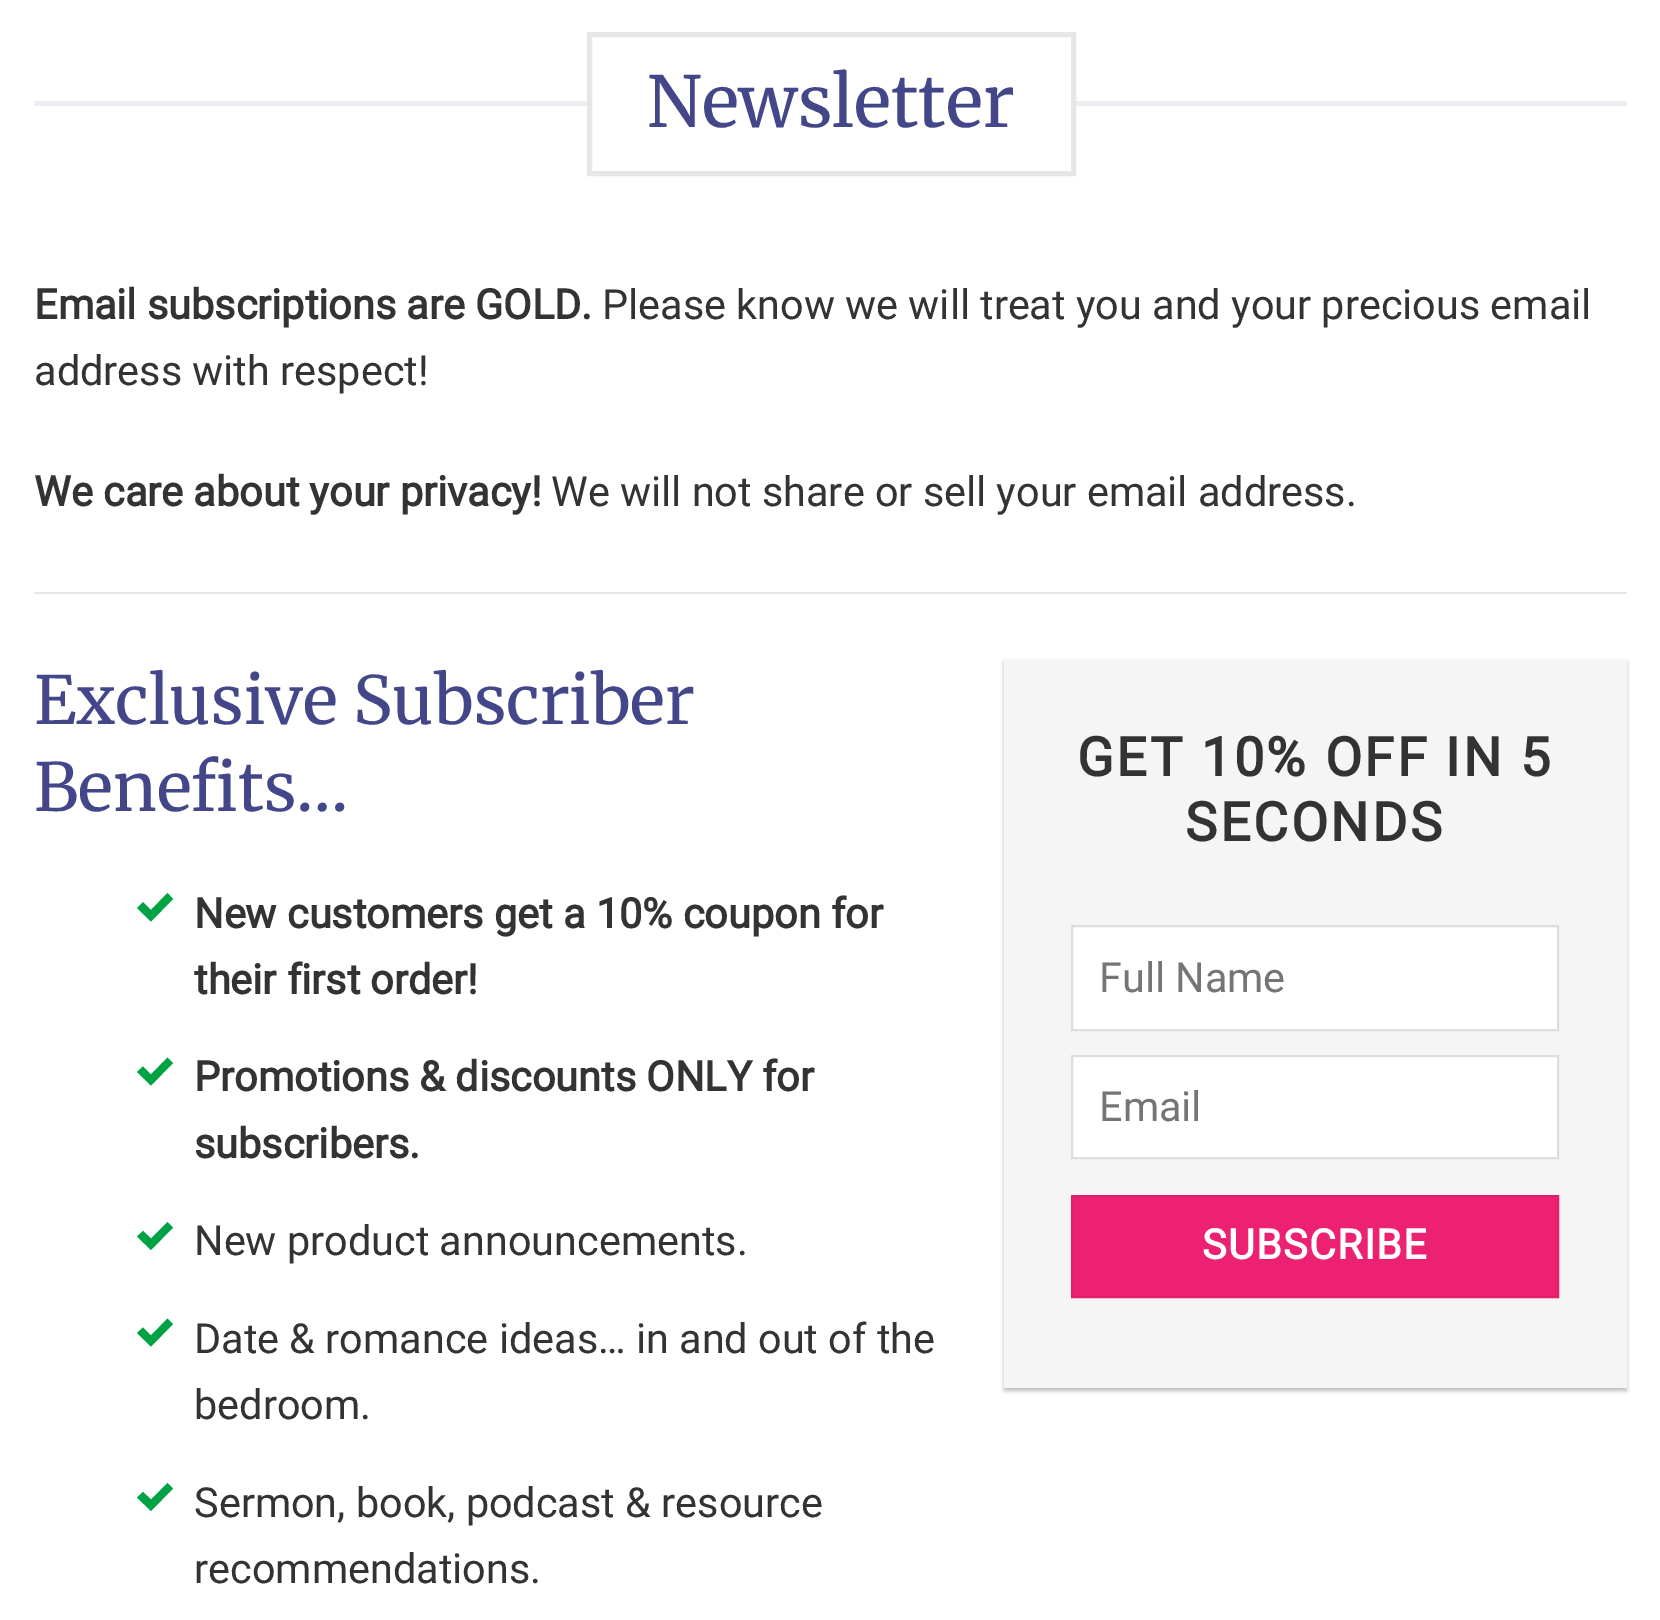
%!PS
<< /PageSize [1660 1620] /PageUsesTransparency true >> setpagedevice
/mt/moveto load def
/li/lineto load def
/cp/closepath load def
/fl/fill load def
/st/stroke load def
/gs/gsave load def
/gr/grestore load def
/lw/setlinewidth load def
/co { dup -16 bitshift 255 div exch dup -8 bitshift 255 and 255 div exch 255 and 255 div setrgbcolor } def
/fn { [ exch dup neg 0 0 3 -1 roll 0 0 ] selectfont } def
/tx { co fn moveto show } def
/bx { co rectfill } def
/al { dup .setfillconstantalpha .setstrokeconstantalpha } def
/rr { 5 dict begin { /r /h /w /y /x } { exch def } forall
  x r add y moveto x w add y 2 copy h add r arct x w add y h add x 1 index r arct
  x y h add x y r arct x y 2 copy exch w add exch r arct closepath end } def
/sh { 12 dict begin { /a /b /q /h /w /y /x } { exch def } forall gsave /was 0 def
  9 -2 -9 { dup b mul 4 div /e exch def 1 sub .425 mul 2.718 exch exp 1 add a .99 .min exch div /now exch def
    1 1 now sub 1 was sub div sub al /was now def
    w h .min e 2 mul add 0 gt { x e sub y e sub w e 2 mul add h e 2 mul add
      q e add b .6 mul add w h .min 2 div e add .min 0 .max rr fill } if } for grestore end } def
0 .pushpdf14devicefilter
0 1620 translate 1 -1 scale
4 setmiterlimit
0 0 1660 1620 16#FFFFFF bx
34 101 553 5 16#ECEDF3 bx
16#E6E6E6 co
5 lw
589.5 34.5 484 139 rectstroke
1076 101 551 5 16#ECEDF3 bx
34 592 1593 2 16#E6E6E6 bx
16#00A344 co
167.5 893 mt 151 910 li 143 902 li 137 908 li 151 921.5 li 173 899 li cp fl
167.5 1057.5 mt 151 1074.5 li 143 1066.5 li 137 1072 li 151 1085.5 li 173 1063 li cp fl
167.5 1222 mt 151 1238.5 li 143 1231 li 137 1236.5 li 151 1250 li 173 1227.5 li cp fl
167.5 1318.5 mt 151 1335.5 li 143 1327.5 li 137 1333 li 151 1346.5 li 173 1324 li cp fl
167.5 1483 mt 151 1499.5 li 143 1492 li 137 1497.5 li 151 1511 li 173 1488.5 li cp fl
16#000000 co
1004 662 623 729 0 2 .24 sh
1008 666 614 720 0 3.5 .12 sh
1004 659 623 729 16#F5F5F5 bx
16#FFFFFF co
1072 926 mt 1558 926 li 1558 1030 li 1072 1030 li cp gs fl gr
16#DDDDDD co
2 lw
st
16#FFFFFF co
1072 1056 mt 1558 1056 li 1558 1158 li 1072 1158 li cp gs fl gr
16#DDDDDD co
st
16#EC2172 co
1072 1196 mt 1558 1196 li 1558 1297 li 1072 1297 li cp gs fl gr
16#E01F6C co
st
(Newsletter) 647 127 /Merriweather-Light 70.5 16#434789 tx
(Email subscriptions are GOLD.) 34 319 /Roboto-Bold 41.4 16#333333 tx
(Please know we will treat you and your precious email) 602 319 /Roboto-Regular 41.4 16#333333 tx
(address with respect!) 34 385 /Roboto-Regular 41.4 16#333333 tx
(We care about your privacy!) 34 506 /Roboto-Bold 41.4 16#333333 tx
(We will not share or sell your email address.) 551 506 /Roboto-Regular 41.4 16#333333 tx
(Exclusive Subscriber) 34 724 /Merriweather-Light 66.25 16#434789 tx
(Benefits…) 34 811 /Merriweather-Light 66.25 16#434789 tx
(New customers get a 10% coupon for) 194 928 /Roboto-Bold 41.4 16#333333 tx
(their first order!) 194 994 /Roboto-Bold 41.4 16#333333 tx
(Promotions & discounts ONLY for) 194 1091 /Roboto-Bold 41.4 16#333333 tx
(subscribers.) 194 1158 /Roboto-Bold 41.4 16#333333 tx
(New product announcements.) 194 1255 /Roboto-Regular 41.4 16#333333 tx
(Date & romance ideas… in and out of the) 194 1353 /Roboto-Regular 41.4 16#333333 tx
(bedroom.) 194 1419 /Roboto-Regular 41.4 16#333333 tx
(Sermon, book, podcast & resource) 194 1517 /Roboto-Regular 41.4 16#333333 tx
(recommendations.) 194 1583 /Roboto-Regular 41.4 16#333333 tx
/Roboto-Bold 53.75 fn
1077 776 mt 2.75 0 (GET 10% OFF IN 5) ashow
1185 841 mt 2.75 0 (SECONDS) ashow
(Full Name) 1099 992 /Roboto-Regular 41.4 16#757575 tx
(Email) 1099 1121 /Roboto-Regular 41.4 16#757575 tx
/Roboto-Bold 41.4 fn
16#FFFFFF co
1202 1259 mt 1.25 0 (SUBSCRIBE) ashow
.poppdf14devicefilter showpage
